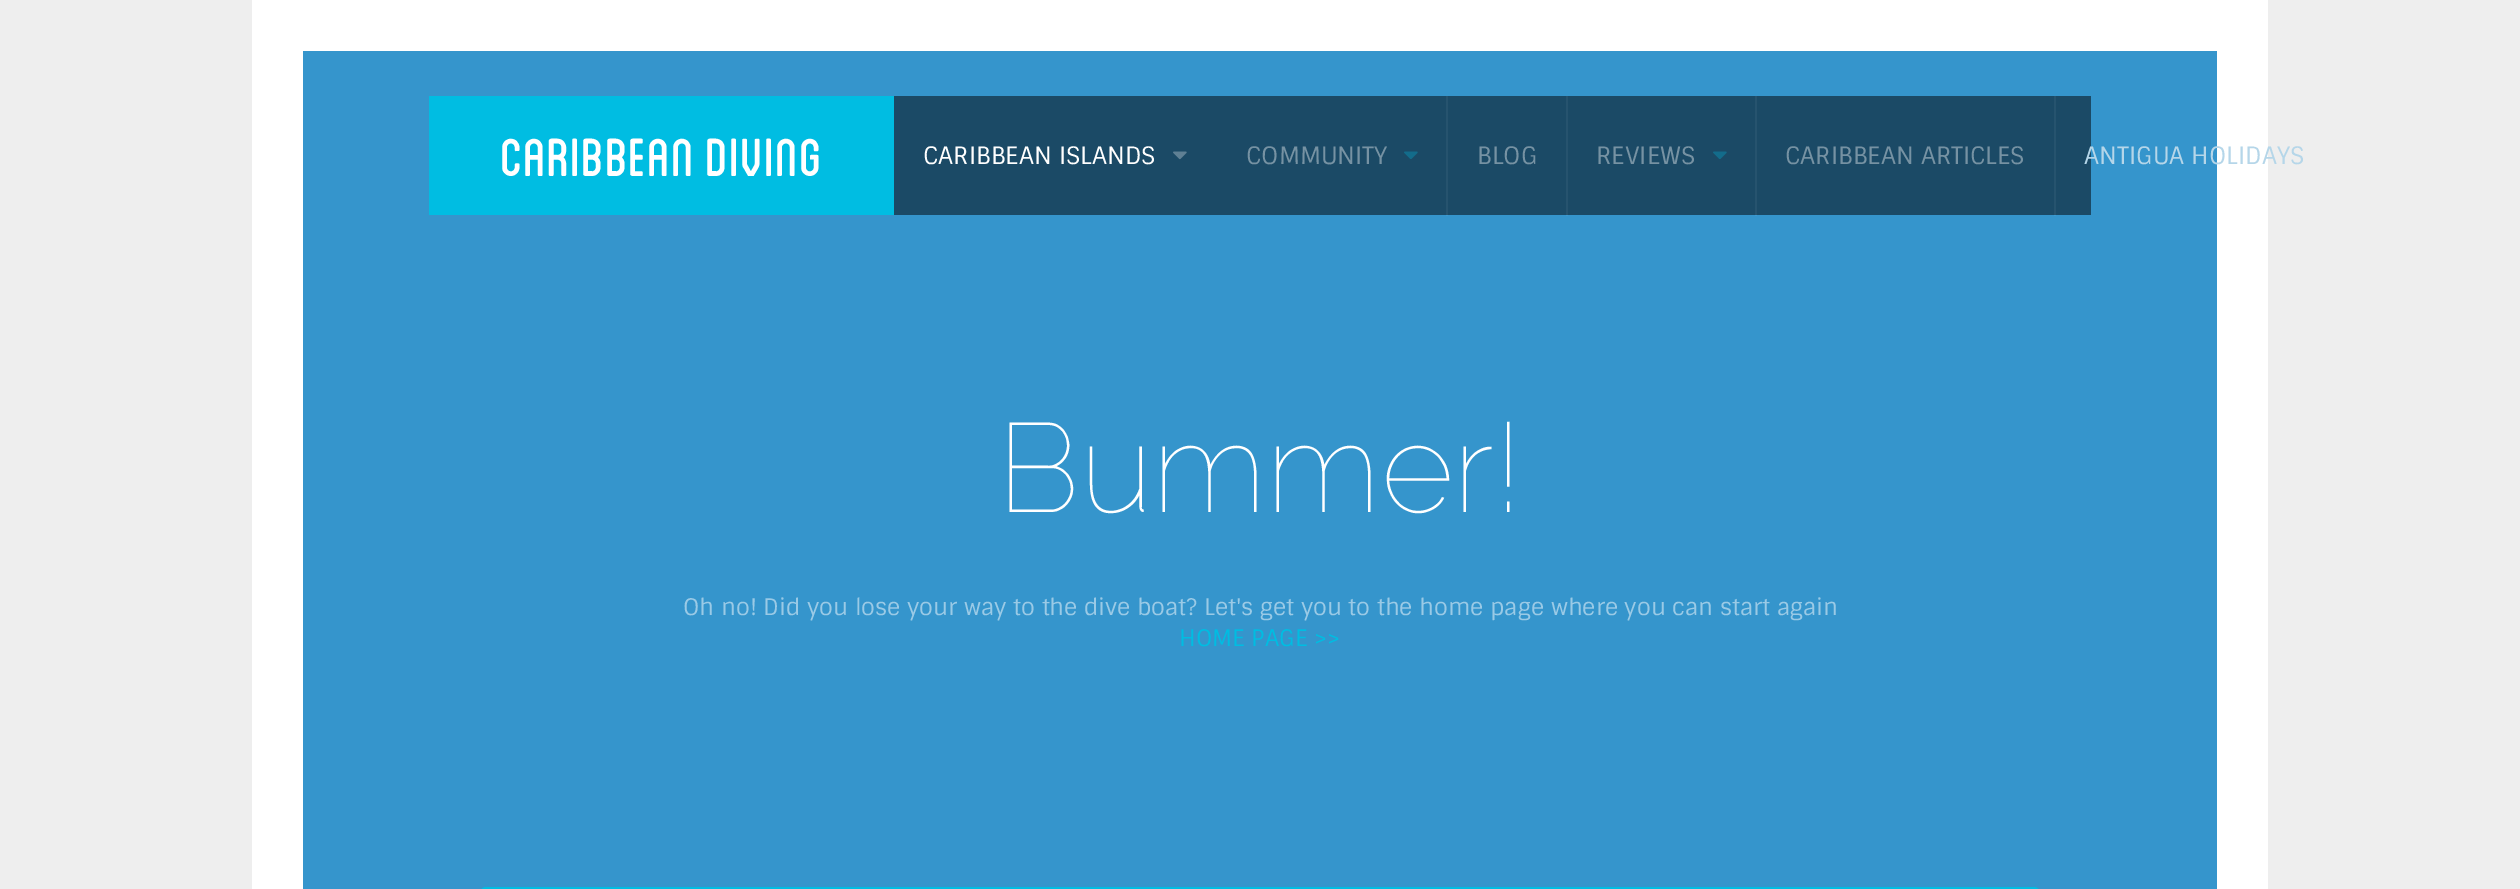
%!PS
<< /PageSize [2520 889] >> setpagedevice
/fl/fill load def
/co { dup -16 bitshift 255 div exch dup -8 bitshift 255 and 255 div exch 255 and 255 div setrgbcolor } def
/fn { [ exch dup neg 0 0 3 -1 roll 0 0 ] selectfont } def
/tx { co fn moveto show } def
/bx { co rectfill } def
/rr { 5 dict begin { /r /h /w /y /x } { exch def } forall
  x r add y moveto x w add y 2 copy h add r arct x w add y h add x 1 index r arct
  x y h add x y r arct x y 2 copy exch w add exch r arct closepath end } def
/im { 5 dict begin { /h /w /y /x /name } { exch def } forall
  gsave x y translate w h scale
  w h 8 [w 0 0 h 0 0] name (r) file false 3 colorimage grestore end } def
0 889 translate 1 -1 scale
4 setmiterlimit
0 0 2520 889 16#EEEEEE bx
303 51 1914 838 16#3595CC bx
894 96 1197 119 16#1B4A66 bx
2054 96 2 119 16#26536E bx
1755 96 2 119 16#26536E bx
1566 96 2 119 16#26536E bx
1446 96 2 119 16#26536E bx
429 96 465 119 16#00BDE2 bx
(media/1.raw) 1173 151 14 9 im
(media/2.raw) 1404 151 14 8 im
(media/2.raw) 1713 151 14 8 im
2054 215 2 1 16#3F9ACF bx
1755 215 2 1 16#3F9ACF bx
1566 215 2 1 16#3F9ACF bx
1446 215 2 1 16#3F9ACF bx
303 0 1914 51 16#FFFFFF bx
2217 0 51 889 16#FFFFFF bx
252 0 51 889 16#FFFFFF bx
16#00BDE2 co
480 887 1560 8 6 rr fl
(Caribbean Diving) 500 176 /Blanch-Regular 75.5 16#FFFFFF tx
(CARIBBEAN ISLANDS) 923 164 /Sintony-Regular 24 16#FFFFFF tx
(COMMUNITY) 1246 164 /Sintony-Regular 24 16#7692A3 tx
(BLOG) 1477 164 /Sintony-Regular 24 16#7692A3 tx
(REVIEWS) 1596 164 /Sintony-Regular 24 16#7692A3 tx
(CARIBBEAN ARTICLES) 1785 164 /Sintony-Regular 24 16#7692A3 tx
(ANTIGUA HOLIDAYS) 2084 164 /Sintony-Regular 24 16#B5D6E9 tx
(Bummer!) 997 512 /Raleway-Thin 126 16#FFFFFF tx
(Oh no! Did you lose your way to the dive boat? Let's get you to the home page where you can start again) 683 615 /Sintony-Regular 22.8 16#9ACAE6 tx
(HOME PAGE >>) 1179 646 /Sintony-Regular 22.8 16#00BDE2 tx
showpage
